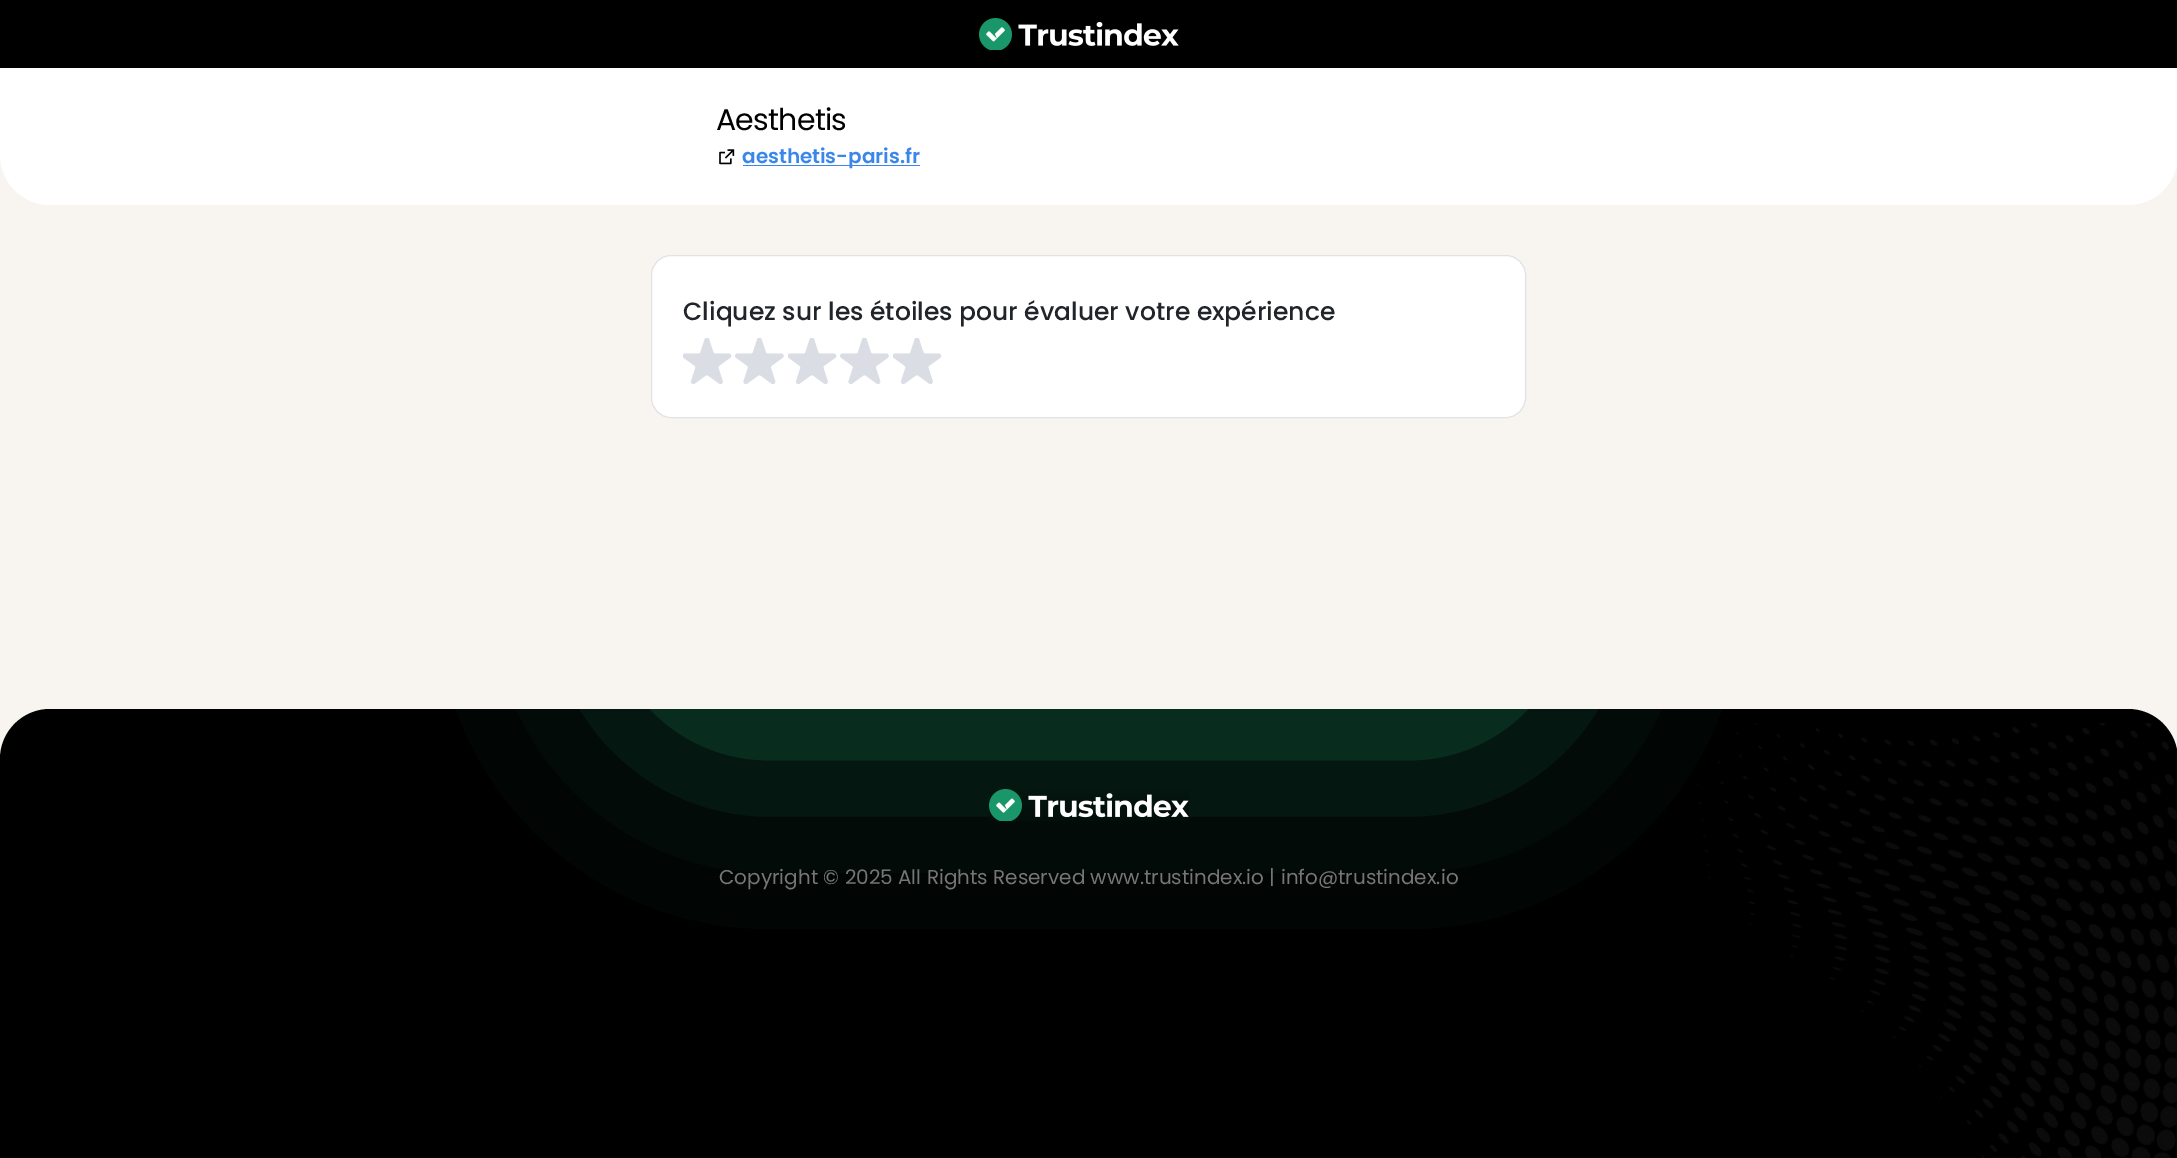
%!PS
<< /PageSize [2177 1158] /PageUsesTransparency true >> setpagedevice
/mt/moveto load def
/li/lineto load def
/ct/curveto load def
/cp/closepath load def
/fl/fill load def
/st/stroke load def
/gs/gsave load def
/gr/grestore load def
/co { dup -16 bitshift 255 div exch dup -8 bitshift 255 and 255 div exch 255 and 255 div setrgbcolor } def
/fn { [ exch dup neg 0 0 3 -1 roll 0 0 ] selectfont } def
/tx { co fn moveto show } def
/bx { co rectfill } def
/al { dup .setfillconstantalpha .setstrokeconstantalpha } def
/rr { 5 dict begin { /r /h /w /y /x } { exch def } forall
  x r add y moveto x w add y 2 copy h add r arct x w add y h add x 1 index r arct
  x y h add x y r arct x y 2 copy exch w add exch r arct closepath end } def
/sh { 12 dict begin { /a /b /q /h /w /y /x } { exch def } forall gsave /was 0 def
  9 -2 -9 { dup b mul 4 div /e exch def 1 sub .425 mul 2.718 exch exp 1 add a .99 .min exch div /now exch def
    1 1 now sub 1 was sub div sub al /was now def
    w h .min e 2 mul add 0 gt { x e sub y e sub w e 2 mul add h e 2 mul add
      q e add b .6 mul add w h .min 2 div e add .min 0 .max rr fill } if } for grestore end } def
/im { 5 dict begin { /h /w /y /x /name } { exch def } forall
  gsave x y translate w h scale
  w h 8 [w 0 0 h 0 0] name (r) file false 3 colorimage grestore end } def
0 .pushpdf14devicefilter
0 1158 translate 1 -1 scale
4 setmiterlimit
0 0 2177 1158 16#F8F5F0 bx
0 0 2177 68 16#000000 bx
(media/1.raw) 979 18 200 32 im
16#FFFFFF co
0 68 mt 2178 68 li 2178 155 li 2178 182.5 2155.5 205 2128 205 ct 50 205 li 22.5 205 0 182.5 0 155 ct cp fl
(media/2.raw) 719 149 16 16 im
743 165 177 1 16#3A86EB bx
16#FFFFFF co
651.5 255.5 874 162 19.5 rr gs fl gr
16#E2E2E2 co
st
(media/3.raw) 683 338 49 46 im
(media/4.raw) 735 338 49 46 im
(media/3.raw) 788 338 49 46 im
(media/4.raw) 840 338 49 46 im
(media/3.raw) 893 338 49 46 im
16#000000 co
50 709 mt 2128 709 li 2155.5 709 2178 731.5 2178 759 ct 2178 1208 li 0 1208 li 0 759 li 0 731.5 22.5 709 50 709 ct cp fl
(media/5.raw) 1697 723 480 435 im
gs
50 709 mt 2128 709 li 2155.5 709 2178 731.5 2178 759 ct 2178 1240 li 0 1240 li 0 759 li 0 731.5 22.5 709 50 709 ct cp clip newpath
16#1A976A co
689 516 800 160 80 112.5 1 sh
gr
(media/6.raw) 989 789 200 32 im
/Poppins-Regular 30 fn
716 130 mt -.75 0 (Aesthetis) ashow
(aesthetis-paris.fr) 742 163 /Poppins-SemiBold 20 16#3A86EB tx
(Cliquez sur les étoiles pour évaluer votre expérience) 683 320 /Poppins-Medium 25 16#212529 tx
(Copyright © 2025 All Rights Reserved www.trustindex.io | info@trustindex.io) 719 884 /Poppins-Regular 20 16#767676 tx
.poppdf14devicefilter showpage
